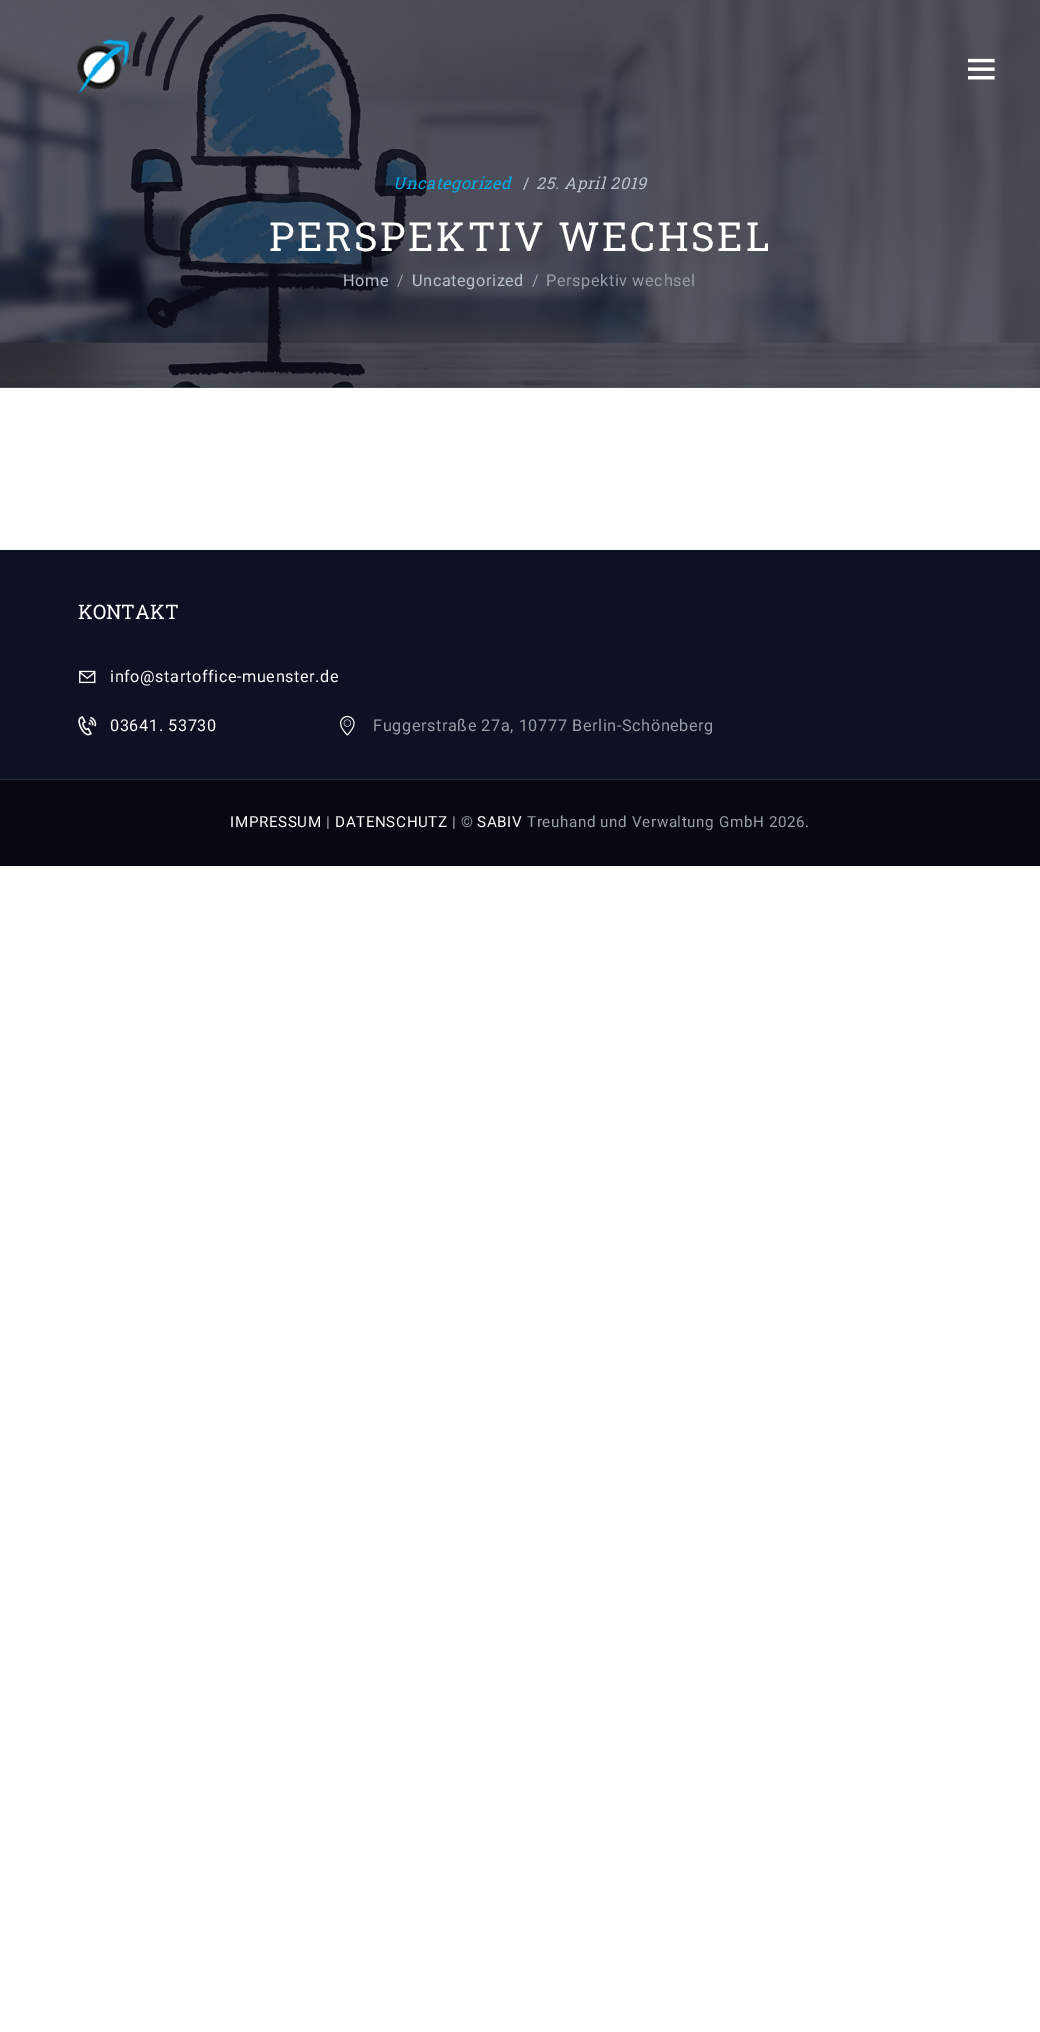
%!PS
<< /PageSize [1040 2032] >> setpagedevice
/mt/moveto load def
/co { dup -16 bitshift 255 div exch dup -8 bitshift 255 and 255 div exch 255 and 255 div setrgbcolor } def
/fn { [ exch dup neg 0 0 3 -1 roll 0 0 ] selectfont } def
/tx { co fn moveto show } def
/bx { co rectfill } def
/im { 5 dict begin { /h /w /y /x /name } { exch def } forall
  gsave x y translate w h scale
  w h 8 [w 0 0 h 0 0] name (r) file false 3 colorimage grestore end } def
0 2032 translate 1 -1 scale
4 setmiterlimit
0 0 1040 2032 16#FFFFFF bx
0 387 1040 1 16#565862 bx
(media/1.raw) 0 0 1040 388 im
(media/2.raw) 77 38 54 56 im
(media/3.raw) 968 58 27 22 im
0 550 1040 229 16#0E1123 bx
(media/4.raw) 79 670 17 14 im
(media/5.raw) 78 716 19 20 im
(media/6.raw) 340 715 15 21 im
0 780 1040 86 16#070811 bx
0 779 1040 1 16#2B2E41 bx
/RobotoSlab-Italic 16.25 fn
16#00AAE6 co
393 189 mt .6 0 (Uncategorized) ashow
/RobotoSlab-Regular 16.25 fn
16#B8C3CC co
523 189 mt .6 0 (/) ashow
/RobotoSlab-Italic 16.25 fn
536 189 mt .6 0 (25. April 2019) ashow
/RobotoSlab-Regular 40 fn
16#FFFFFF co
269 251 mt 2.5 0 (PERSPEKTIV WECHSEL) ashow
/Roboto-Regular 16.25 fn
16#B8C3CC co
343 286 mt .6 0 (Home) ashow
16#969FA6 co
397 286 mt .6 0 (/) ashow
16#B8C3CC co
412 286 mt .6 0 (Uncategorized) ashow
16#969FA6 co
532 286 mt .6 0 (/) ashow
546 286 mt .6 0 (Perspektiv wechsel) ashow
(KONTAKT) 78 619 /RobotoSlab-Regular 20 16#FFFFFF tx
/Roboto-Regular 16.25 fn
110 682 mt .6 0 (info@startoffice-muenster.de) ashow
110 731 mt .6 0 (03641. 53730) ashow
16#969FA6 co
373 731 mt .6 0 (Fuggerstraße 27a, 10777 Berlin-Schöneberg) ashow
/Roboto-Regular 15.2 fn
16#FFFFFF co
230 827 mt .6 0 (IMPRESSUM) ashow
16#969FA6 co
326 827 mt .6 0 (|) ashow
16#FFFFFF co
335 827 mt .6 0 (DATENSCHUTZ) ashow
16#969FA6 co
452 827 mt .6 0 (| ©) ashow
16#FFFFFF co
477 827 mt .6 0 (SABIV) ashow
16#969FA6 co
527 827 mt .6 0 (Treuhand und Verwaltung GmbH 2026.) ashow
showpage
